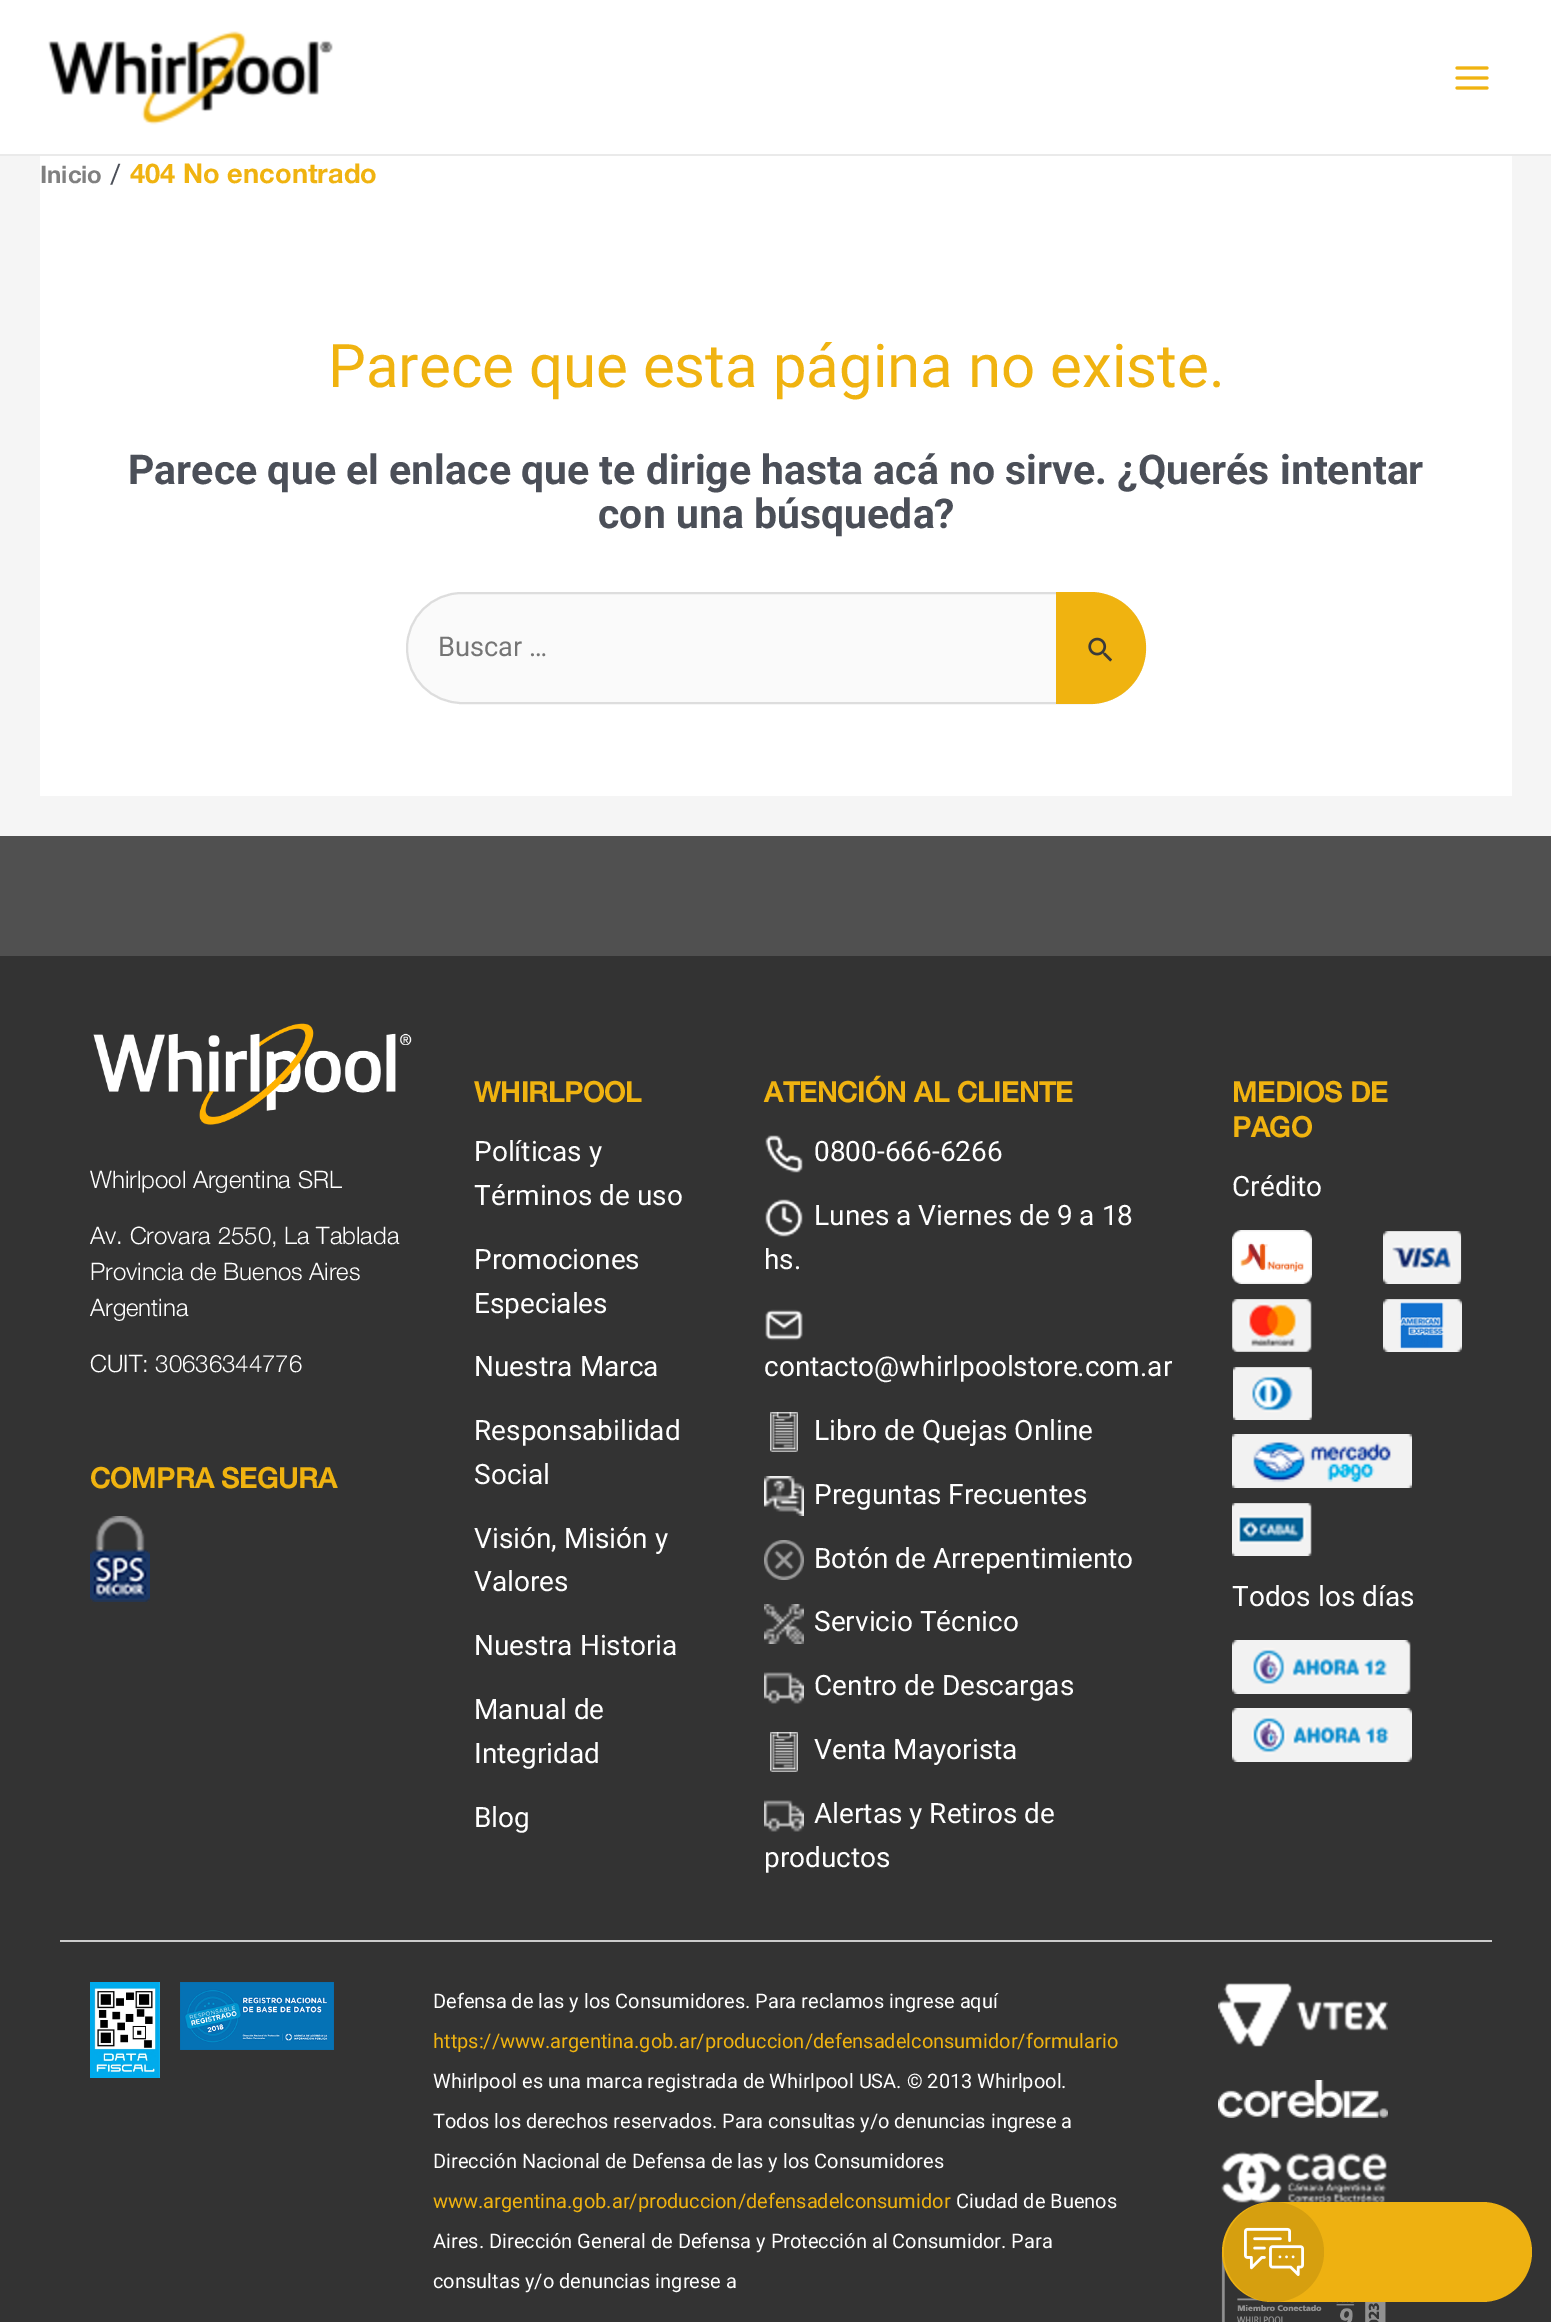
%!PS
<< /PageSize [1551 2322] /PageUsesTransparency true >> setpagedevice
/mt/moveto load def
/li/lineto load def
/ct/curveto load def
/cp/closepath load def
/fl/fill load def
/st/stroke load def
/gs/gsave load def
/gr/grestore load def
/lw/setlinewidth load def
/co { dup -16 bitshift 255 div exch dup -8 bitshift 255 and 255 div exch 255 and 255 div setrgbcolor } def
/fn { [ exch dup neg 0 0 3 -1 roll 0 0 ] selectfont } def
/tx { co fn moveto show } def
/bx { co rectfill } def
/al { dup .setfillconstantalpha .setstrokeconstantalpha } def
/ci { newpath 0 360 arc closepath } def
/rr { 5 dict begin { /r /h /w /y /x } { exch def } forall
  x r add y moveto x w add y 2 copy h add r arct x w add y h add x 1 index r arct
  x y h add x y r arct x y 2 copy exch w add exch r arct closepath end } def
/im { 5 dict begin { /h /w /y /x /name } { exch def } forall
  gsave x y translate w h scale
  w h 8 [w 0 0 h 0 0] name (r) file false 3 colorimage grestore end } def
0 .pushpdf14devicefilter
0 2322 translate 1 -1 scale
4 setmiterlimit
0 0 1551 2322 16#F5F5F5 bx
0 0 1551 154 16#FFFFFF bx
0 154 1551 2 16#EAEAEA bx
(media/1.raw) 48 31 285 94 im
(media/2.raw) 1455 66 34 24 im
40 156 1472 640 16#FFFFFF bx
16#FAFAFA co
407 593 738 110 55 rr gs fl gr
16#DDDDDD co
2 lw
st
16#F0B310 co
1056 592 mt 1090 592 li 1121 592 1146 617 1146 648 ct 1146 679 1121 704 1090 704 ct 1056 704 li cp fl
(media/3.raw) 1088 637 24 25 im
0 836 1551 120 16#505050 bx
0 956 1551 1366 16#333333 bx
(media/4.raw) 93 1023 319 102 im
(media/5.raw) 90 1516 60 86 im
(media/6.raw) 765 1135 38 38 im
(media/7.raw) 765 1199 38 38 im
(media/8.raw) 765 1309 38 32 im
(media/9.raw) 770 1412 28 40 im
(media/10.raw) 764 1476 40 40 im
(media/11.raw) 764 1540 40 40 im
(media/12.raw) 764 1604 40 40 im
(media/13.raw) 764 1672 40 32 im
(media/14.raw) 770 1732 28 40 im
(media/13.raw) 764 1800 40 32 im
(media/15.raw) 1232 1230 80 54 im
(media/16.raw) 1383 1231 79 53 im
(media/17.raw) 1232 1299 80 53 im
(media/18.raw) 1383 1299 79 53 im
(media/19.raw) 1233 1367 79 53 im
(media/20.raw) 1232 1434 180 54 im
(media/21.raw) 1232 1503 80 53 im
(media/22.raw) 1232 1640 179 54 im
(media/23.raw) 1232 1708 180 54 im
60 1940 1432 2 16#CCCCCC bx
(media/24.raw) 90 1982 70 96 im
(media/25.raw) 180 1982 154 68 im
(media/26.raw) 1218 1983 170 64 im
(media/27.raw) 1218 2080 170 38 im
(media/28.raw) 1221 2151 166 52 im
(media/29.raw) 1221 2248 165 74 im
16#EEB111 co
1222 2202 310 100 50 rr fl
0.1 al
16#000000 co
1274 2252 50 ci fl
1 al
(media/30.raw) 1244 2227 60 49 im
(Inicio) 40 183 /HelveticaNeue-Bold 24 16#808080 tx
(/) 110 183 /Roboto-Regular 27.25 16#4B4F58 tx
(404 No encontrado) 130 183 /HelveticaNeue-Bold 27.25 16#F0B310 tx
(Parece que esta página no existe.) 328 387 /Roboto-Regular 60 16#F0B310 tx
(Parece que el enlace que te dirige hasta acá no sirve. ¿Querés intentar) 128 484 /Roboto-Bold 41.05 16#4B4F58 tx
(con una búsqueda?) 598 528 /Roboto-Bold 41.05 16#4B4F58 tx
(Buscar …) 438 656 /Roboto-Regular 27.25 16#757575 tx
(Whirlpool Argentina SRL) 90 1188 /HelveticaNeue-Light 24 16#FFFFFF tx
(Av. Crovara 2550, La Tablada) 90 1244 /HelveticaNeue-Light 24 16#FFFFFF tx
(Provincia de Buenos Aires) 90 1280 /HelveticaNeue-Light 24 16#FFFFFF tx
(Argentina) 90 1316 /HelveticaNeue-Light 24 16#FFFFFF tx
(CUIT: 30636344776) 90 1372 /HelveticaNeue-Light 24 16#FFFFFF tx
(COMPRA SEGURA) 90 1488 /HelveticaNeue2-Bold 28 16#F0B310 tx
(WHIRLPOOL) 474 1102 /HelveticaNeue2-Bold 28 16#F0B310 tx
(Políticas y) 474 1161 /Roboto-Regular 28 16#FFFFFF tx
(Términos de uso) 474 1205 /Roboto-Regular 28 16#FFFFFF tx
(Promociones) 474 1269 /Roboto-Regular 28 16#FFFFFF tx
(Especiales) 474 1313 /Roboto-Regular 28 16#FFFFFF tx
(Nuestra Marca) 474 1376 /Roboto-Regular 28 16#FFFFFF tx
(Responsabilidad) 474 1440 /Roboto-Regular 28 16#FFFFFF tx
(Social) 474 1484 /Roboto-Regular 28 16#FFFFFF tx
(Visión, Misión y) 474 1548 /Roboto-Regular 28 16#FFFFFF tx
(Valores) 474 1591 /Roboto-Regular 28 16#FFFFFF tx
(Nuestra Historia) 474 1655 /Roboto-Regular 28 16#FFFFFF tx
(Manual de) 474 1719 /Roboto-Regular 28 16#FFFFFF tx
(Integridad) 474 1763 /Roboto-Regular 28 16#FFFFFF tx
(Blog) 474 1827 /Roboto-Regular 28 16#FFFFFF tx
(ATENCIÓN AL CLIENTE) 764 1102 /HelveticaNeue2-Bold 28 16#F0B310 tx
(0800-666-6266) 814 1161 /Roboto-Regular 28 16#FFFFFF tx
(Lunes a Viernes de 9 a 18) 814 1225 /Roboto-Regular 28 16#FFFFFF tx
(hs.) 764 1269 /Roboto-Regular 28 16#FFFFFF tx
(contacto@whirlpoolstore.com.ar) 764 1376 /Roboto-Regular 28 16#FFFFFF tx
(Libro de Quejas Online) 814 1440 /Roboto-Regular 28 16#FFFFFF tx
(Preguntas Frecuentes) 814 1504 /Roboto-Regular 28 16#FFFFFF tx
(Botón de Arrepentimiento) 814 1568 /Roboto-Regular 28 16#FFFFFF tx
(Servicio Técnico) 814 1631 /Roboto-Regular 28 16#FFFFFF tx
(Centro de Descargas) 814 1695 /Roboto-Regular 28 16#FFFFFF tx
(Venta Mayorista) 814 1759 /Roboto-Regular 28 16#FFFFFF tx
(Alertas y Retiros de) 814 1823 /Roboto-Regular 28 16#FFFFFF tx
(productos) 764 1867 /Roboto-Regular 28 16#FFFFFF tx
(MEDIOS DE) 1232 1102 /HelveticaNeue2-Bold 28 16#F0B310 tx
(PAGO) 1232 1137 /HelveticaNeue2-Bold 28 16#F0B310 tx
(Crédito) 1232 1196 /Roboto-Regular 28 16#FFFFFF tx
(Todos los días) 1232 1606 /Roboto-Regular 28 16#FFFFFF tx
(Defensa de las y los Consumidores. Para reclamos ingrese aquí) 433 2008 /Roboto-Regular 20 16#FFFFFF tx
(https://www.argentina.gob.ar/produccion/defensadelconsumidor/formulario) 433 2048 /Roboto-Regular 20 16#F0B310 tx
(Whirlpool es una marca registrada de Whirlpool USA. © 2013 Whirlpool.) 433 2088 /Roboto-Regular 20 16#FFFFFF tx
(Todos los derechos reservados. Para consultas y/o denuncias ingrese a) 433 2128 /Roboto-Regular 20 16#FFFFFF tx
(Dirección Nacional de Defensa de las y los Consumidores) 433 2168 /Roboto-Regular 20 16#FFFFFF tx
(www.argentina.gob.ar/produccion/defensadelconsumidor) 433 2208 /Roboto-Regular 20 16#F0B310 tx
(Ciudad de Buenos) 956 2208 /Roboto-Regular 20 16#FFFFFF tx
(Aires. Dirección General de Defensa y Protección al Consumidor. Para) 433 2248 /Roboto-Regular 20 16#FFFFFF tx
(consultas y/o denuncias ingrese a) 433 2288 /Roboto-Regular 20 16#FFFFFF tx
.poppdf14devicefilter showpage
